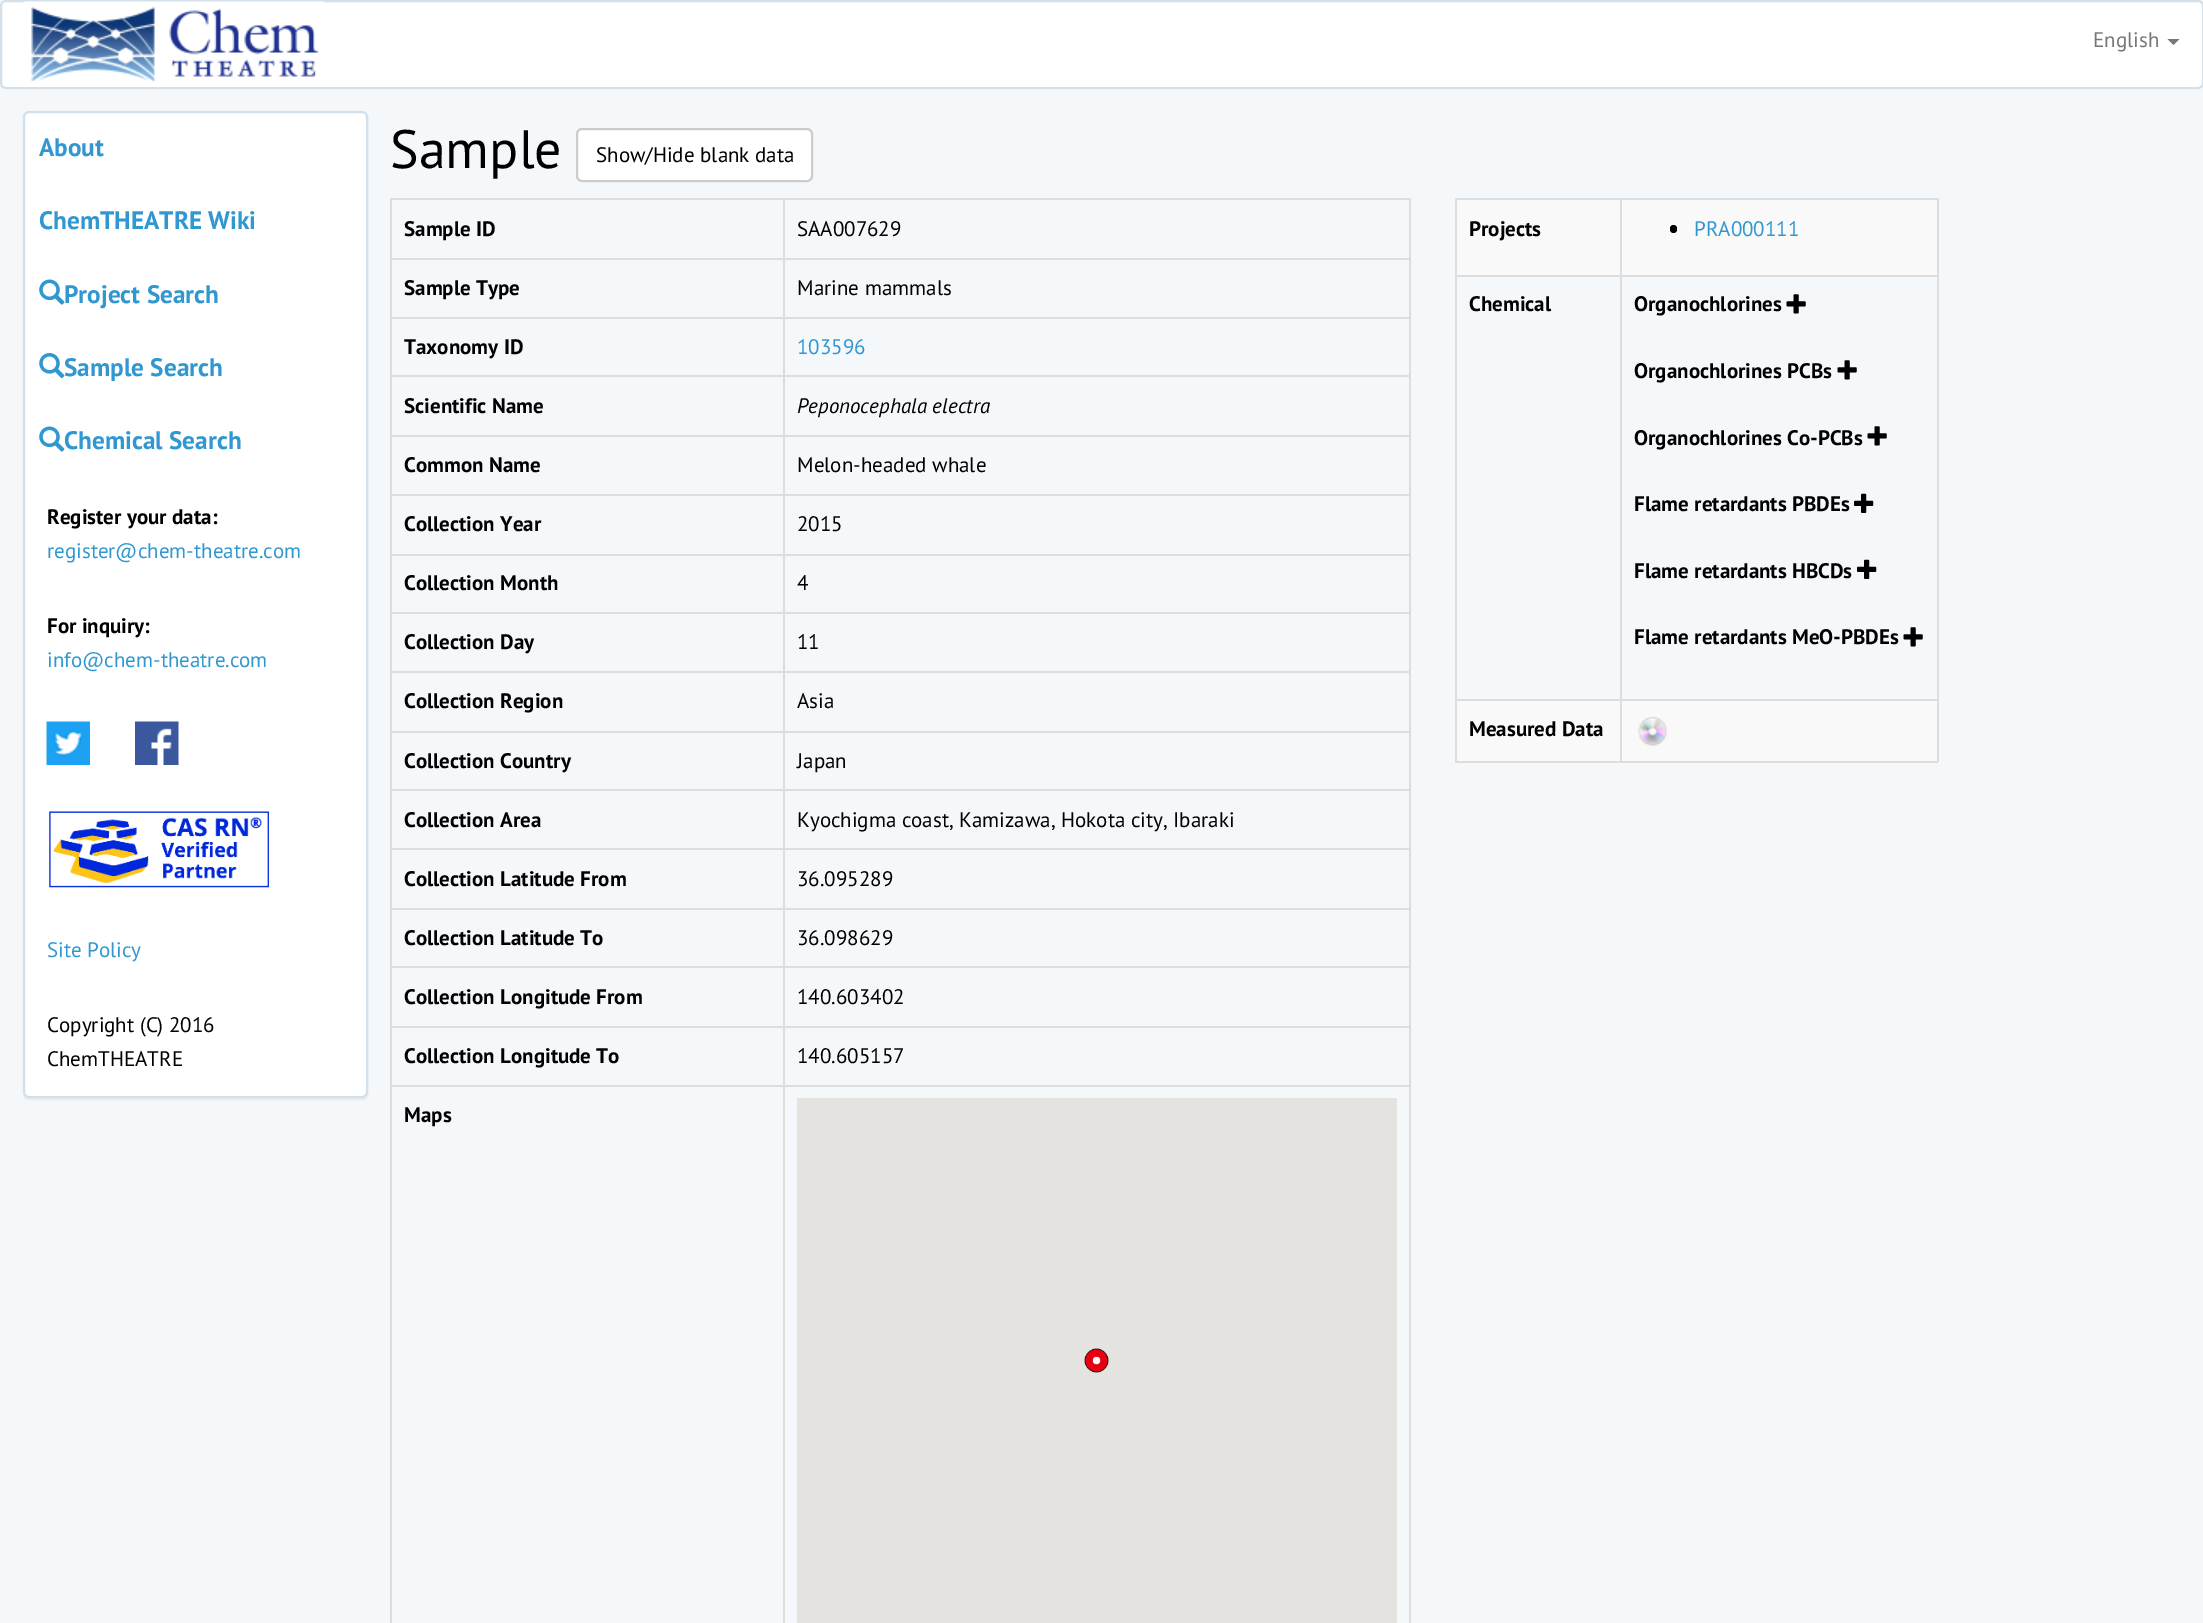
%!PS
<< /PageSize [2203 1623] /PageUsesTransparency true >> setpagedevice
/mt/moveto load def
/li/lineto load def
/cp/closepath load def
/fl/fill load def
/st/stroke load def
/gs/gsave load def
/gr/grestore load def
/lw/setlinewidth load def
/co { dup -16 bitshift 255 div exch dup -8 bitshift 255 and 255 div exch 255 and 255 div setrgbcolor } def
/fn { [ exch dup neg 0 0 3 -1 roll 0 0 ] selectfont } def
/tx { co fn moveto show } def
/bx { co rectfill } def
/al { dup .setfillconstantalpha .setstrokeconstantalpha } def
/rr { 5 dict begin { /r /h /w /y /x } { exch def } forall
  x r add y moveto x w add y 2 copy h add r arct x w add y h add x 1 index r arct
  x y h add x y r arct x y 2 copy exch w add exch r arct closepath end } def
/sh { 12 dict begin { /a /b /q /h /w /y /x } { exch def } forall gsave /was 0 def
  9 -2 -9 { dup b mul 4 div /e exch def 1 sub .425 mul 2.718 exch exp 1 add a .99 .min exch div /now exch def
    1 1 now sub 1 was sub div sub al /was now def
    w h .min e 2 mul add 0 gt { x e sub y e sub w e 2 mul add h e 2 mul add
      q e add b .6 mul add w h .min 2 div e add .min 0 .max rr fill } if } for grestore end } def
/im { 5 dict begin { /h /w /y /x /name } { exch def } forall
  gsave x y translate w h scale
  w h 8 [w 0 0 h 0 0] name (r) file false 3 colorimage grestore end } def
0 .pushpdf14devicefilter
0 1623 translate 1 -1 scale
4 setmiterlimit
0 0 2203 1623 16#F5F8FA bx
16#FFFFFF co
1 1 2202 87 5 rr gs fl gr
16#D3E0E9 co
2 lw
st
(media/1.raw) 24 1 300 81 im
16#777777 co
2167.5 39 mt 2179.5 39 li 2173.5 45 li cp fl
16#000000 co
23 113 345 987 6 1 .05 sh
16#FFFFFF co
24 112 343 985 5 rr gs fl gr
16#D3E0E9 co
st
(media/2.raw) 39 279 26 26 im
(media/2.raw) 39 426 26 26 im
(media/4.raw) 46 721 44 44 im
(media/5.raw) 135 721 44 44 im
(media/6.raw) 49 811 220 77 im
16#FFFFFF co
577 129 235 52 5 rr gs fl gr
16#CCCCCC co
st
390 198 1020 2 16#DDDDDD bx
1409 198 2 1425 16#DDDDDD bx
390 198 2 1425 16#DDDDDD bx
783 258 627 2 16#DDDDDD bx
783 317 627 2 16#DDDDDD bx
783 375 627 2 16#DDDDDD bx
783 435 627 2 16#DDDDDD bx
783 494 627 2 16#DDDDDD bx
783 554 627 2 16#DDDDDD bx
783 612 627 2 16#DDDDDD bx
783 671 627 2 16#DDDDDD bx
783 731 627 2 16#DDDDDD bx
783 789 627 2 16#DDDDDD bx
783 848 627 2 16#DDDDDD bx
783 908 627 2 16#DDDDDD bx
783 966 627 2 16#DDDDDD bx
783 1026 627 2 16#DDDDDD bx
783 1085 627 2 16#DDDDDD bx
783 1085 2 538 16#DDDDDD bx
390 1085 395 2 16#DDDDDD bx
783 1026 2 60 16#DDDDDD bx
390 1026 395 2 16#DDDDDD bx
783 966 2 62 16#DDDDDD bx
390 966 395 2 16#DDDDDD bx
783 908 2 60 16#DDDDDD bx
390 908 395 2 16#DDDDDD bx
783 848 2 61 16#DDDDDD bx
390 848 395 2 16#DDDDDD bx
783 789 2 60 16#DDDDDD bx
390 789 395 2 16#DDDDDD bx
783 731 2 60 16#DDDDDD bx
390 731 395 2 16#DDDDDD bx
783 671 2 61 16#DDDDDD bx
390 671 395 2 16#DDDDDD bx
783 612 2 60 16#DDDDDD bx
390 612 395 2 16#DDDDDD bx
783 554 2 60 16#DDDDDD bx
390 554 395 2 16#DDDDDD bx
783 494 2 61 16#DDDDDD bx
390 494 395 2 16#DDDDDD bx
783 435 2 60 16#DDDDDD bx
390 435 395 2 16#DDDDDD bx
783 375 2 62 16#DDDDDD bx
390 375 395 2 16#DDDDDD bx
783 317 2 60 16#DDDDDD bx
390 317 395 2 16#DDDDDD bx
783 258 2 60 16#DDDDDD bx
390 258 395 2 16#DDDDDD bx
783 198 2 62 16#DDDDDD bx
797 1098 600 525 16#E5E3DF bx
(media/7.raw) 1084 1348 25 25 im
1455 198 483 2 16#DDDDDD bx
1937 198 2 564 16#DDDDDD bx
1455 761 483 2 16#DDDDDD bx
1455 198 2 564 16#DDDDDD bx
1457 200 480 75 16#F9F9F9 bx
1620 275 318 2 16#DDDDDD bx
1620 699 318 2 16#DDDDDD bx
1457 701 480 60 16#F9F9F9 bx
1620 699 2 63 16#DDDDDD bx
1455 699 167 2 16#DDDDDD bx
1620 275 2 426 16#DDDDDD bx
1455 275 167 2 16#DDDDDD bx
1620 198 2 78 16#DDDDDD bx
16#000000 co
1670 225 7 8 3.5 rr fl
(media/8.raw) 1786 294 20 20 im
(media/8.raw) 1837 360 20 20 im
(media/8.raw) 1867 426 20 20 im
(media/9.raw) 1854 493 20 20 im
(media/9.raw) 1857 559 20 20 im
(media/8.raw) 1903 627 20 20 im
(media/10.raw) 1638 716 29 30 im
(English) 2093 47 /PTSans-Regular 21 16#777777 tx
(About) 39 156 /PTSans-Bold 25.25 16#3097D1 tx
(ChemTHEATRE Wiki) 39 229 /PTSans-Bold 25.25 16#3097D1 tx
(Project Search) 64 303 /PTSans-Bold 25.25 16#3097D1 tx
(Sample Search) 64 376 /PTSans-Bold 25.25 16#3097D1 tx
(media/3.raw) 39 353 26 26 im
(Chemical Search) 64 449 /PTSans-Bold 25.25 16#3097D1 tx
(Register your data:) 47 524 /PTSans-Bold 21 16#000000 tx
(register@chem-theatre.com) 47 558 /PTSans-Regular 21 16#3097D1 tx
(For inquiry:) 47 633 /PTSans-Bold 21 16#000000 tx
(info@chem-theatre.com) 47 667 /PTSans-Regular 21 16#3097D1 tx
(Site Policy) 47 957 /PTSans-Regular 21 16#3097D1 tx
(Copyright \(C\) 2016) 47 1032 /PTSans-Regular 21 16#000000 tx
(ChemTHEATRE) 47 1066 /PTSans-Regular 21 16#000000 tx
(Sample) 390 168 /PTSans-Regular 54 16#000000 tx
(Show/Hide blank data) 596 162 /PTSans-Regular 21 16#000000 tx
(Sample ID) 404 236 /PTSans-Bold 21 16#000000 tx
(SAA007629) 797 236 /PTSans-Regular 21 16#000000 tx
(Sample Type) 404 295 /PTSans-Bold 21 16#000000 tx
(Marine mammals) 797 295 /PTSans-Regular 21 16#000000 tx
(Taxonomy ID) 404 354 /PTSans-Bold 21 16#000000 tx
(103596) 797 354 /PTSans-Regular 21 16#3097D1 tx
(Scientific Name) 404 413 /PTSans-Bold 21 16#000000 tx
(Peponocephala electra) 797 413 /PTSans-Italic 21 16#000000 tx
(Common Name) 404 472 /PTSans-Bold 21 16#000000 tx
(Melon-headed whale) 797 472 /PTSans-Regular 21 16#000000 tx
(Collection Year) 404 531 /PTSans-Bold 21 16#000000 tx
(2015) 797 531 /PTSans-Regular 21 16#000000 tx
(Collection Month) 404 590 /PTSans-Bold 21 16#000000 tx
(4) 797 590 /PTSans-Regular 21 16#000000 tx
(Collection Day) 404 649 /PTSans-Bold 21 16#000000 tx
(11) 797 649 /PTSans-Regular 21 16#000000 tx
(Collection Region) 404 708 /PTSans-Bold 21 16#000000 tx
(Asia) 797 708 /PTSans-Regular 21 16#000000 tx
(Collection Country) 404 768 /PTSans-Bold 21 16#000000 tx
(Japan) 797 768 /PTSans-Regular 21 16#000000 tx
(Collection Area) 404 827 /PTSans-Bold 21 16#000000 tx
(Kyochigma coast, Kamizawa, Hokota city, Ibaraki) 797 827 /PTSans-Regular 21 16#000000 tx
(Collection Latitude From) 404 886 /PTSans-Bold 21 16#000000 tx
(36.095289) 797 886 /PTSans-Regular 21 16#000000 tx
(Collection Latitude To) 404 945 /PTSans-Bold 21 16#000000 tx
(36.098629) 797 945 /PTSans-Regular 21 16#000000 tx
(Collection Longitude From) 404 1004 /PTSans-Bold 21 16#000000 tx
(140.603402) 797 1004 /PTSans-Regular 21 16#000000 tx
(Collection Longitude To) 404 1063 /PTSans-Bold 21 16#000000 tx
(140.605157) 797 1063 /PTSans-Regular 21 16#000000 tx
(Maps) 404 1122 /PTSans-Bold 21 16#000000 tx
(Projects) 1469 236 /PTSans-Bold 21 16#000000 tx
(PRA000111) 1694 236 /PTSans-Regular 21 16#3097D1 tx
(Chemical) 1469 311 /PTSans-Bold 21 16#000000 tx
(Organochlorines) 1634 311 /PTSans-Bold 21 16#000000 tx
(Organochlorines PCBs) 1634 378 /PTSans-Bold 21 16#000000 tx
(Organochlorines Co-PCBs) 1634 445 /PTSans-Bold 21 16#000000 tx
(Flame retardants PBDEs) 1634 511 /PTSans-Bold 21 16#000000 tx
(Flame retardants HBCDs) 1634 578 /PTSans-Bold 21 16#000000 tx
(Flame retardants MeO-PBDEs) 1634 644 /PTSans-Bold 21 16#000000 tx
(Measured Data) 1469 736 /PTSans-Bold 21 16#000000 tx
.poppdf14devicefilter showpage
